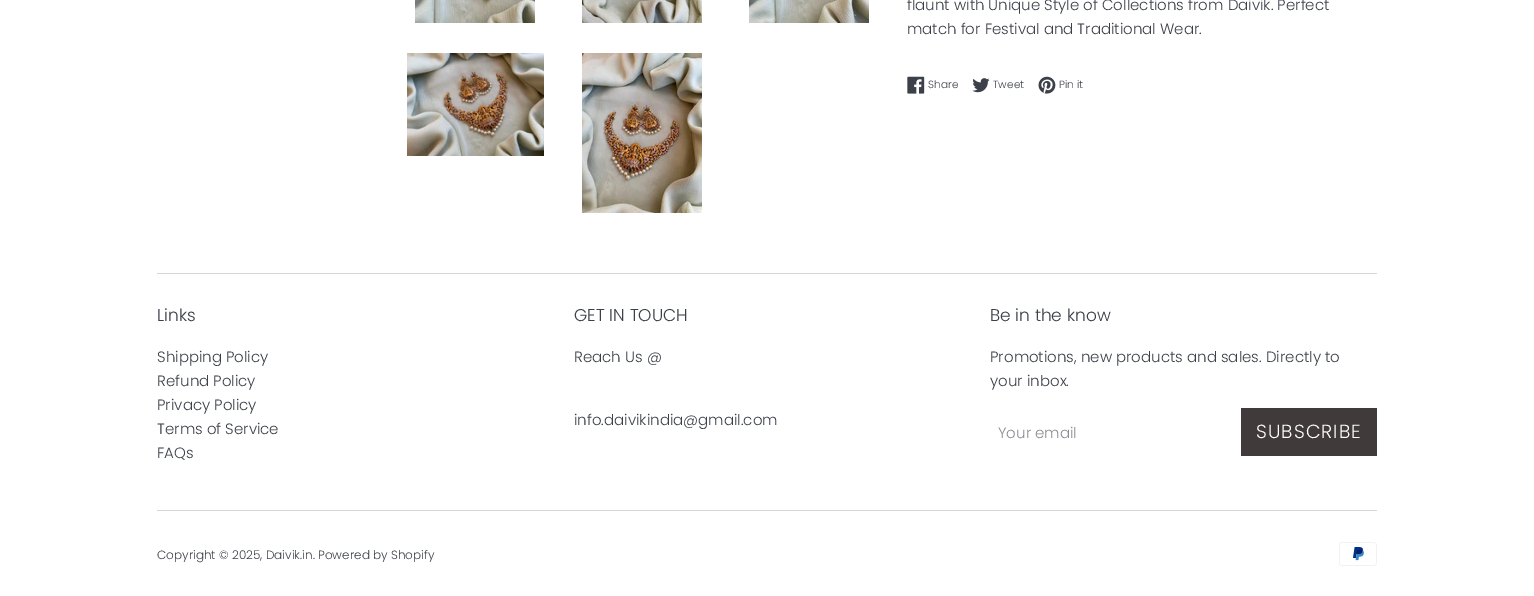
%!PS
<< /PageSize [1534 596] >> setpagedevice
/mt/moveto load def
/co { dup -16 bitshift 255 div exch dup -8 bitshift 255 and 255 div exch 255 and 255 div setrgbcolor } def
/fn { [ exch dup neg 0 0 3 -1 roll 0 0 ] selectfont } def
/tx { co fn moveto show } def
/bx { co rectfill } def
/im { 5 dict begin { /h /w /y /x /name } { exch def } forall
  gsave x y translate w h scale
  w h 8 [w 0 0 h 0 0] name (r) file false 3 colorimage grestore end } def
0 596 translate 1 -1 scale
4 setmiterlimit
0 0 1534 596 16#FFFFFF bx
(media/1.raw) 415 0 120 23 im
(media/2.raw) 582 0 120 23 im
(media/3.raw) 749 0 120 23 im
(media/4.raw) 407 53 137 103 im
(media/5.raw) 582 53 120 160 im
(media/6.raw) 907 76 18 18 im
(media/7.raw) 972 78 18 15 im
(media/8.raw) 1038 76 18 18 im
157 273 1220 1 16#D7D8D2 bx
1241 408 136 48 16#413A3A bx
157 510 1220 1 16#D7D8D2 bx
(media/9.raw) 1339 542 38 24 im
(flaunt with Unique Style of Collections from Daivik. Perfect) 907 10 /Poppins-Light 15 16#3C4049 tx
(match for Festival and Traditional Wear.) 907 34 /Poppins-Light 15 16#3C4049 tx
(Share) 928 88 /Poppins-Light 10.5 16#3C4049 tx
(Tweet) 993 88 /Poppins-Light 10.5 16#3C4049 tx
(Pin it) 1059 88 /Poppins-Light 10.5 16#3C4049 tx
(Links) 157 321 /Poppins-Light 17 16#3C4049 tx
(Shipping Policy) 157 362 /Poppins-Light 15 16#3C4049 tx
(Refund Policy) 157 386 /Poppins-Light 15 16#3C4049 tx
(Privacy Policy) 157 410 /Poppins-Light 15 16#3C4049 tx
(Terms of Service) 157 434 /Poppins-Light 15 16#3C4049 tx
(FAQs) 157 458 /Poppins-Light 15 16#3C4049 tx
(GET IN TOUCH) 574 321 /Poppins-Light 17 16#3C4049 tx
(Reach Us @) 574 362 /Poppins-Light 15 16#3C4049 tx
(info.daivikindia@gmail.com) 574 425 /Poppins-Light 15 16#3C4049 tx
(Be in the know) 990 321 /Poppins-Light 17 16#3C4049 tx
(Promotions, new products and sales. Directly to) 990 362 /Poppins-Light 15 16#3C4049 tx
(your inbox.) 990 386 /Poppins-Light 15 16#3C4049 tx
(Your email) 998 438 /Poppins-Light 15 16#8A8C92 tx
/Poppins-Light 19 fn
16#FFFFFF co
1256 438 mt 1 0 (SUBSCRIBE) ashow
(Copyright © 2025, Daivik.in. Powered by Shopify) 157 559 /Poppins-Light 12 16#3C4049 tx
showpage
